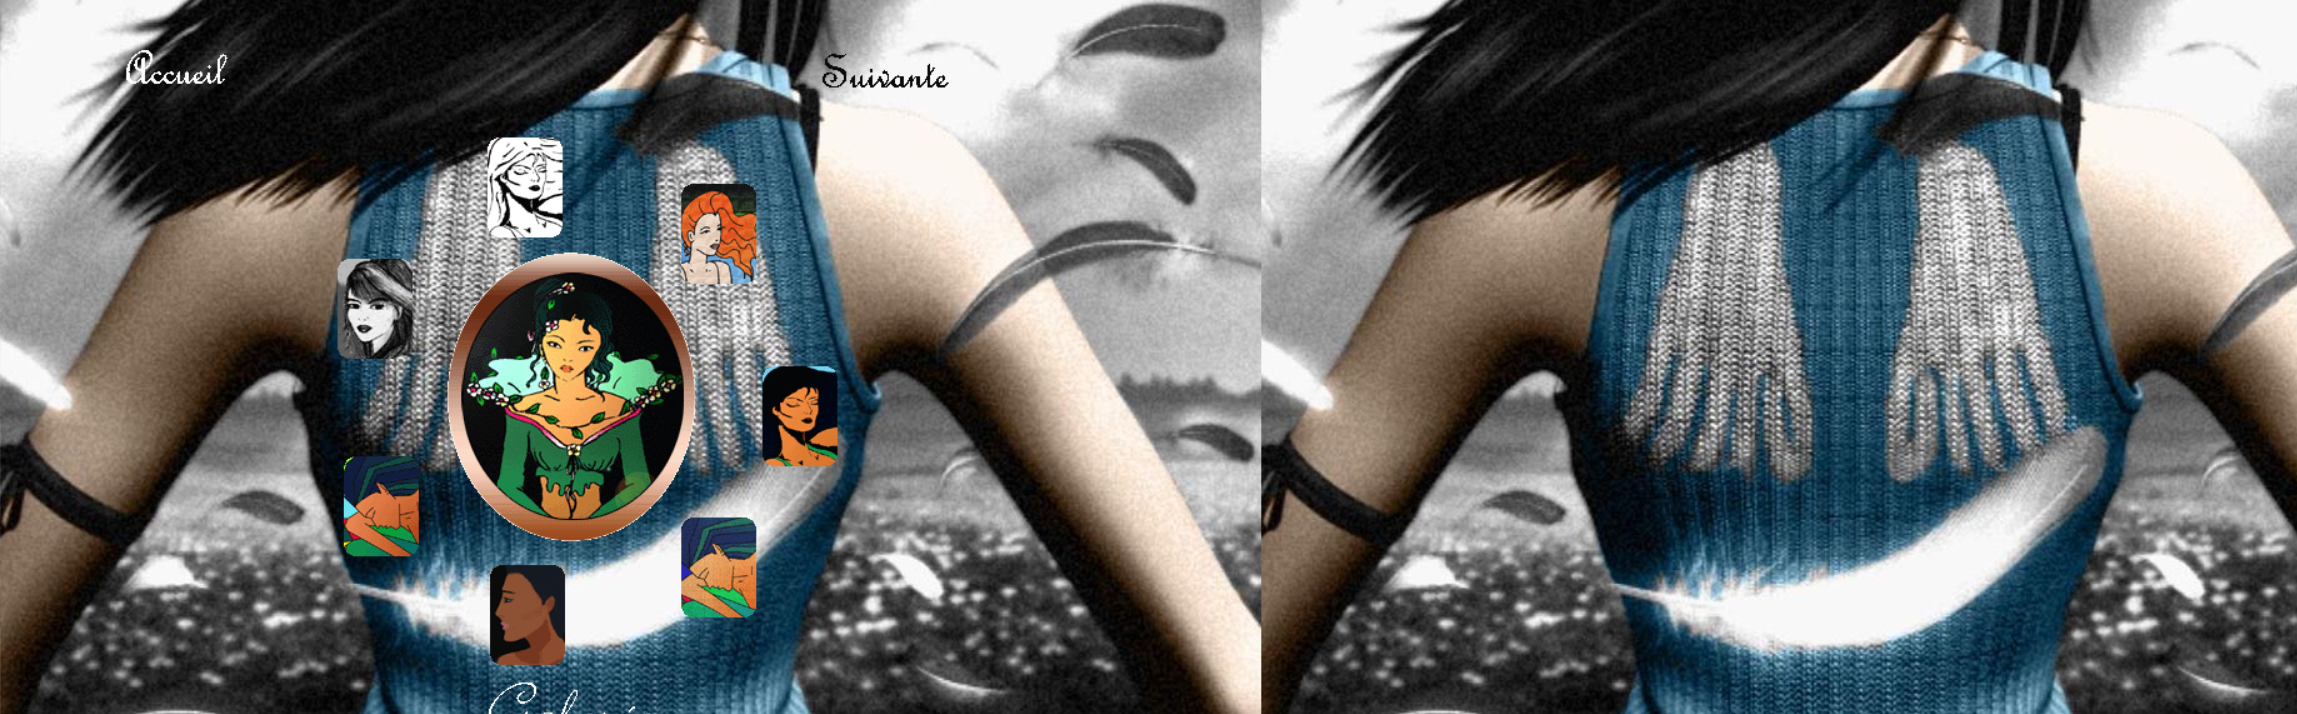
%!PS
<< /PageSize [2297 714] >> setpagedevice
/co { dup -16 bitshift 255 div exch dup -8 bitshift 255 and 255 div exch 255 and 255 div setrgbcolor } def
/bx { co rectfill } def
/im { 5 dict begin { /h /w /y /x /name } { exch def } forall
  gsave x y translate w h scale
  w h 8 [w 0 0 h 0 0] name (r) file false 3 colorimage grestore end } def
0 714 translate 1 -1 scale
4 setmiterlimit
0 0 2297 714 16#FFFFFF bx
(media/1.raw) 0 0 2297 714 im
(media/2.raw) 126 49 102 35 im
(media/3.raw) 822 53 127 35 im
(media/4.raw) 337 137 501 577 im
showpage
